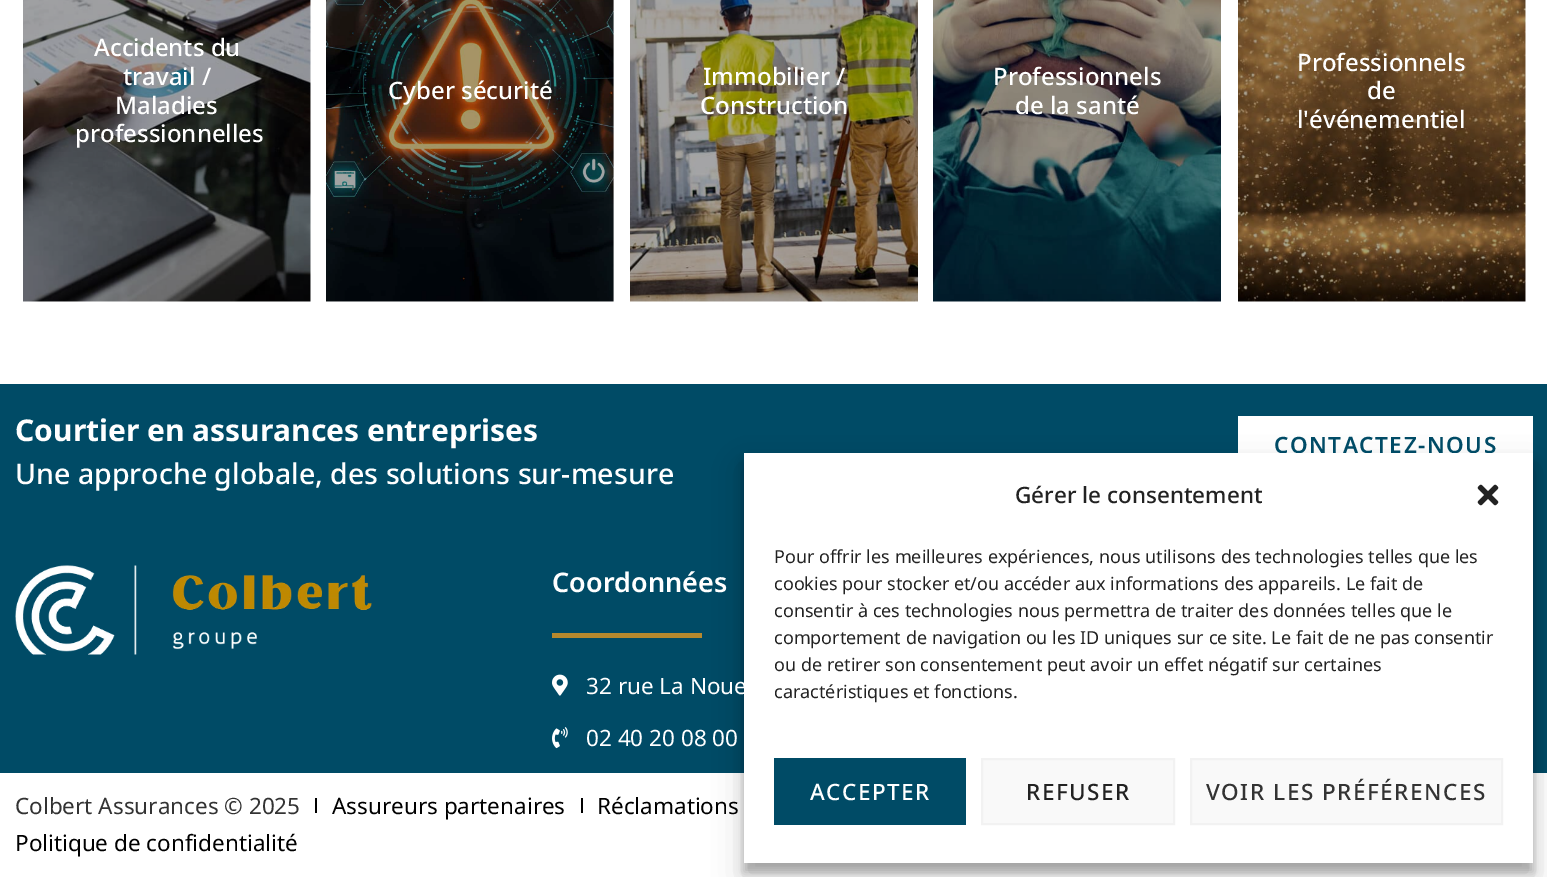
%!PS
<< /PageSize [1547 877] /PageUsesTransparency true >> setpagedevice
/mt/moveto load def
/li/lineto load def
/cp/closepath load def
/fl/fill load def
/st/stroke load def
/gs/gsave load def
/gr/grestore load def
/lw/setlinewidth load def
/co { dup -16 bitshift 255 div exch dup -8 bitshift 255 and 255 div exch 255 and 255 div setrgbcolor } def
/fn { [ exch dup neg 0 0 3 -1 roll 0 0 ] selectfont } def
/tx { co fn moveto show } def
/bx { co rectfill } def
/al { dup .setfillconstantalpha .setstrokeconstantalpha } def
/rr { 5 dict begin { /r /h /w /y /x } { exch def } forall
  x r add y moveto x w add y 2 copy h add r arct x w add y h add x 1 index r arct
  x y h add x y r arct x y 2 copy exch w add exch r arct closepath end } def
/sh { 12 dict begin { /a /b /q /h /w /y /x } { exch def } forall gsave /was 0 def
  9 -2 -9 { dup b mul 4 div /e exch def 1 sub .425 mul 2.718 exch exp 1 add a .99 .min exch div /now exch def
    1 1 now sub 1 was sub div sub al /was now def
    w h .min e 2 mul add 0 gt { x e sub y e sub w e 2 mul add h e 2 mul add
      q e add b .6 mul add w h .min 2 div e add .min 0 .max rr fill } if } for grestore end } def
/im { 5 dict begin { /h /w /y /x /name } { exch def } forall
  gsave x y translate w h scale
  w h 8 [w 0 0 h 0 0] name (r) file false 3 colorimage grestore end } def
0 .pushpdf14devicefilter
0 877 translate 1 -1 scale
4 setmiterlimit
0 0 1547 877 16#FFFFFF bx
(media/1.raw) 23 0 288 302 im
(media/2.raw) 326 0 288 302 im
(media/3.raw) 630 0 288 302 im
(media/4.raw) 933 0 288 302 im
(media/5.raw) 1238 0 288 302 im
0 384 1547 389 16#004B66 bx
1238 416 295 37 16#FFFFFF bx
(media/6.raw) 15 565 357 90 im
552 633 150 5 16#B6892E bx
(media/7.raw) 552 674 16 22 im
(media/8.raw) 552 727 16 22 im
315 798 2 15 16#000000 bx
581 798 2 15 16#000000 bx
744 462 789 410 0 4.5 .23 sh
744 468 789 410 0 15 .19 sh
(Accidents du) 94 56 /NotoSans-Medium 24 16#FFFFFF tx
(travail /) 123 85 /NotoSans-Medium 24 16#FFFFFF tx
(Maladies) 115 114 /NotoSans-Medium 24 16#FFFFFF tx
(professionnelles) 75 142 /NotoSans-Medium 24 16#FFFFFF tx
(Cyber sécurité) 388 99 /NotoSans-Medium 24 16#FFFFFF tx
(Immobilier /) 703 85 /NotoSans-Medium 24 16#FFFFFF tx
(Construction) 700 114 /NotoSans-Medium 24 16#FFFFFF tx
(Professionnels) 993 85 /NotoSans-Medium 24 16#FFFFFF tx
(de la santé) 1015 114 /NotoSans-Medium 24 16#FFFFFF tx
(Professionnels) 1297 71 /NotoSans-Medium 24 16#FFFFFF tx
(de) 1367 99 /NotoSans-Medium 24 16#FFFFFF tx
(l'événementiel) 1297 128 /NotoSans-Medium 24 16#FFFFFF tx
(Courtier en assurances entreprises) 15 441 /NotoSans-Bold 30 16#FFFFFF tx
(Une approche globale, des solutions sur-mesure) 15 484 /NotoSans-Medium 28.5 16#FFFFFF tx
/NotoSans-SemiBold 22.5 fn
16#004B66 co
1274 453 mt 1.5 0 (CONTACTEZ-NOUS) ashow
(Coordonnées) 552 592 /NotoSans-SemiBold 27 16#FFFFFF tx
(32 rue La Noue) 586 694 /NotoSans-Regular 22.5 16#FFFFFF tx
(02 40 20 08 00) 586 746 /NotoSans-Regular 22.5 16#FFFFFF tx
(Colbert Assurances © 2025) 15 814 /NotoSans-Regular 22.5 16#333333 tx
(Assureurs partenaires) 332 814 /NotoSans-Regular 22.5 16#000000 tx
(Réclamations) 597 814 /NotoSans-Regular 22.5 16#000000 tx
(Politique de confidentialité) 15 851 /NotoSans-Regular 22.5 16#000000 tx
744 453 789 410 16#FFFFFF bx
(Gérer le consentement) 1015 503 /NotoSans-Medium 22.5 16#222222 tx
(media/9.raw) 1477 484 22 22 im
(Pour offrir les meilleures expériences, nous utilisons des technologies telles que les) 774 563 /NotoSans-Regular 18 16#222222 tx
(cookies pour stocker et/ou accéder aux informations des appareils. Le fait de) 774 590 /NotoSans-Regular 18 16#222222 tx
(consentir à ces technologies nous permettra de traiter des données telles que le) 774 617 /NotoSans-Regular 18 16#222222 tx
(comportement de navigation ou les ID uniques sur ce site. Le fait de ne pas consentir) 774 644 /NotoSans-Regular 18 16#222222 tx
(ou de retirer son consentement peut avoir un effet négatif sur certaines) 774 671 /NotoSans-Regular 18 16#222222 tx
(caractéristiques et fonctions.) 774 698 /NotoSans-Regular 18 16#222222 tx
774 758 192 67 16#004B66 bx
/NotoSans-Medium 22.5 fn
16#FFFFFF co
810 800 mt 1.5 0 (ACCEPTER) ashow
16#F9F9F9 co
982 759 mt 1174 759 li 1174 824 li 982 824 li cp gs fl gr
16#F2F2F2 co
2 lw
st
16#222222 co
1026 800 mt 1.5 0 (REFUSER) ashow
16#F9F9F9 co
1191 759 mt 1502 759 li 1502 824 li 1191 824 li cp gs fl gr
16#F2F2F2 co
st
16#333333 co
1206 800 mt 1.5 0 (VOIR LES PRÉFÉRENCES) ashow
.poppdf14devicefilter showpage
